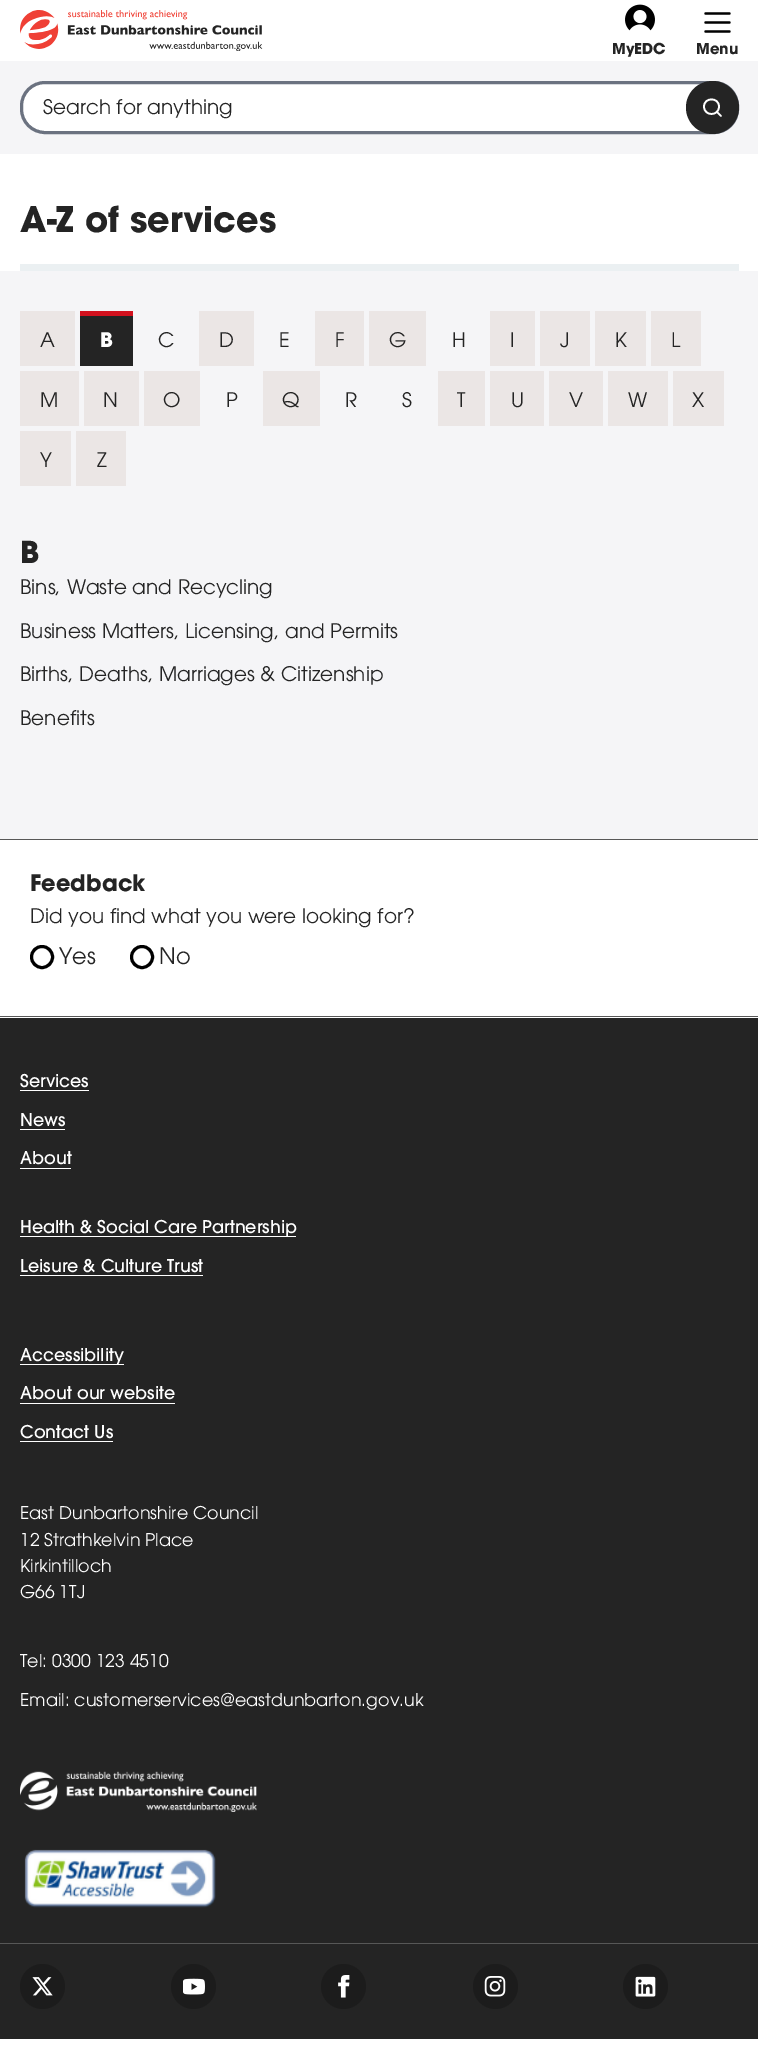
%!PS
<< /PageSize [758 2050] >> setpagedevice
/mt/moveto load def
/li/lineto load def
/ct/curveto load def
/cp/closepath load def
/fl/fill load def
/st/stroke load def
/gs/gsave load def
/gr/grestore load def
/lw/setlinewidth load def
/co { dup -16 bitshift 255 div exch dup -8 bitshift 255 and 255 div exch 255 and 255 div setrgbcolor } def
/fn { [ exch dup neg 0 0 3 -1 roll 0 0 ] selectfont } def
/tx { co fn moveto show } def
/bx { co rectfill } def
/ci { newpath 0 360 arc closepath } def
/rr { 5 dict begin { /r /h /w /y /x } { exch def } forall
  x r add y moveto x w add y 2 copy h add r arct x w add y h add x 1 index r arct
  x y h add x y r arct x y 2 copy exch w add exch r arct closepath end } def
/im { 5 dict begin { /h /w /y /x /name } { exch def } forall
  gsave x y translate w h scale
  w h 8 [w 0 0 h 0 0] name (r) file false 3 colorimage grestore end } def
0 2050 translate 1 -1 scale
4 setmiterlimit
0 0 758 2050 16#FFFFFF bx
(media/1.raw) 20 10 243 41 im
(media/2.raw) 625 4 30 27 im
(media/3.raw) 704 12 27 21 im
0 61 758 93 16#F5F5F7 bx
16#FFFFFF co
21.5 82.5 716 50 23.5 rr gs fl gr
16#6B7280 co
3 lw
st
16#242424 co
712.5 107.5 26.5 ci fl
16#FFFFFF co
1.7 lw
1 setlinecap
1 setlinejoin
721 116 mt 717 112 li 719 106.5 mt 719 116.5 704 116.5 704 106.5 ct 704 97 719 97 719 106.5 ct cp st
20 264 719 7 16#EBF0F2 bx
0 271 758 568 16#F5F5F7 bx
20 311 55 55 16#EBE6E5 bx
80 316 53 50 16#242424 bx
80 311 53 5 16#D3111E bx
199 311 55 55 16#EBE6E5 bx
315 311 49 55 16#EBE6E5 bx
369 311 57 55 16#EBE6E5 bx
490 311 45 55 16#EBE6E5 bx
540 311 50 55 16#EBE6E5 bx
595 311 51 55 16#EBE6E5 bx
651 311 50 55 16#EBE6E5 bx
20 371 59 55 16#EBE6E5 bx
84 371 55 55 16#EBE6E5 bx
144 371 56 55 16#EBE6E5 bx
263 371 57 55 16#EBE6E5 bx
438 371 47 55 16#EBE6E5 bx
490 371 54 55 16#EBE6E5 bx
549 371 54 55 16#EBE6E5 bx
608 371 60 55 16#EBE6E5 bx
673 371 51 55 16#EBE6E5 bx
20 431 51 55 16#EBE6E5 bx
76 431 50 55 16#EBE6E5 bx
0 839 758 1 16#575757 bx
0 1016 758 1 16#575757 bx
16#000000 co
3 lw
0 setlinecap
0 setlinejoin
42 957 10.5 ci st
142 957 10.5 ci st
0 1018 758 1021 16#242424 bx
20 1090 69 1 16#FFFFFF bx
20 1129 45 1 16#FFFFFF bx
20 1168 51 1 16#FFFFFF bx
20 1236 276 1 16#FFFFFF bx
20 1275 183 1 16#FFFFFF bx
20 1364 104 1 16#FFFFFF bx
20 1403 155 1 16#FFFFFF bx
20 1441 93 1 16#FFFFFF bx
(media/4.raw) 20 1771 237 41 im
(media/5.raw) 24 1849 192 59 im
0 1943 758 1 16#575757 bx
16#1C1C1C co
42.5 1986.5 22.5 ci fl
(media/6.raw) 32 1977 21 19 im
193.5 1986.5 22.5 ci fl
(media/7.raw) 183 1978 22 17 im
343.5 1986.5 22.5 ci fl
(media/8.raw) 338 1975 12 23 im
495.5 1986.5 22.5 ci fl
(media/9.raw) 484 1976 22 21 im
645.5 1986.5 22.5 ci fl
(media/10.raw) 635 1976 21 21 im
(MyEDC) 612 54 /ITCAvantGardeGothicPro-Bold 15 16#242424 tx
(Menu) 696 54 /ITCAvantGardeGothicPro-Bold 15 16#242424 tx
(Search for anything) 43 114 /ITCAvantGardeGothicPro-Light 20 16#242424 tx
(A-Z of services) 20 232 /ITCAvantGardeGothicPro-Bold 35 16#242424 tx
(A) 40 347 /ITCAvantGardeGothicPro-Light 20 16#242424 tx
(B) 100 347 /ITCAvantGardeGothicPro-Bold 20 16#FFFFFF tx
(C) 158 347 /ITCAvantGardeGothicPro-Light 20 16#242424 tx
(D) 219 347 /ITCAvantGardeGothicPro-Light 20 16#242424 tx
(E) 279 347 /ITCAvantGardeGothicPro-Light 20 16#242424 tx
(F) 335 347 /ITCAvantGardeGothicPro-Light 20 16#242424 tx
(G) 389 347 /ITCAvantGardeGothicPro-Light 20 16#242424 tx
(H) 452 347 /ITCAvantGardeGothicPro-Light 20 16#242424 tx
(I) 510 347 /ITCAvantGardeGothicPro-Light 20 16#242424 tx
(J) 560 347 /ITCAvantGardeGothicPro-Light 20 16#242424 tx
(K) 615 347 /ITCAvantGardeGothicPro-Light 20 16#242424 tx
(L) 671 347 /ITCAvantGardeGothicPro-Light 20 16#242424 tx
(M) 40 407 /ITCAvantGardeGothicPro-Light 20 16#242424 tx
(N) 103 407 /ITCAvantGardeGothicPro-Light 20 16#242424 tx
(O) 163 407 /ITCAvantGardeGothicPro-Light 20 16#242424 tx
(P) 226 407 /ITCAvantGardeGothicPro-Light 20 16#242424 tx
(Q) 282 407 /ITCAvantGardeGothicPro-Light 20 16#242424 tx
(R) 345 407 /ITCAvantGardeGothicPro-Light 20 16#242424 tx
(S) 402 407 /ITCAvantGardeGothicPro-Light 20 16#242424 tx
(T) 457 407 /ITCAvantGardeGothicPro-Light 20 16#242424 tx
(U) 511 407 /ITCAvantGardeGothicPro-Light 20 16#242424 tx
(V) 569 407 /ITCAvantGardeGothicPro-Light 20 16#242424 tx
(W) 628 407 /ITCAvantGardeGothicPro-Light 20 16#242424 tx
(X) 692 407 /ITCAvantGardeGothicPro-Light 20 16#242424 tx
(Y) 40 467 /ITCAvantGardeGothicPro-Light 20 16#242424 tx
(Z) 97 467 /ITCAvantGardeGothicPro-Light 20 16#242424 tx
(B) 20 563 /ITCAvantGardeGothicPro-Bold 30 16#242424 tx
(Bins, Waste and Recycling) 20 594 /ITCAvantGardeGothicPro-Light 20 16#242424 tx
(Business Matters, Licensing, and Permits) 20 638 /ITCAvantGardeGothicPro-Light 20 16#242424 tx
(Births, Deaths, Marriages & Citizenship) 20 681 /ITCAvantGardeGothicPro-Light 20 16#242424 tx
(Benefits) 20 725 /ITCAvantGardeGothicPro-Light 20 16#242424 tx
(Feedback) 30 891 /ITCAvantGardeGothicPro-Bold 22.5 16#242424 tx
(Did you find what you were looking for?) 30 923 /ITCAvantGardeGothicPro-Light 20 16#242424 tx
(Yes) 59 964 /ITCAvantGardeGothicPro-Light 22.5 16#242424 tx
(No) 159 964 /ITCAvantGardeGothicPro-Light 22.5 16#242424 tx
(Services) 20 1087 /ITCAvantGardeGothicPro-Medium 17.5 16#FFFFFF tx
(News) 20 1126 /ITCAvantGardeGothicPro-Medium 17.5 16#FFFFFF tx
(About) 20 1164 /ITCAvantGardeGothicPro-Medium 17.5 16#FFFFFF tx
(Health & Social Care Partnership) 20 1233 /ITCAvantGardeGothicPro-Medium 17.5 16#FFFFFF tx
(Leisure & Culture Trust) 20 1272 /ITCAvantGardeGothicPro-Medium 17.5 16#FFFFFF tx
(Accessibility) 20 1361 /ITCAvantGardeGothicPro-Medium 17.5 16#FFFFFF tx
(About our website) 20 1399 /ITCAvantGardeGothicPro-Medium 17.5 16#FFFFFF tx
(Contact Us) 20 1438 /ITCAvantGardeGothicPro-Medium 17.5 16#FFFFFF tx
(East Dunbartonshire Council) 20 1519 /ITCAvantGardeGothicPro-Light 17.5 16#FFFFFF tx
(12 Strathkelvin Place) 20 1546 /ITCAvantGardeGothicPro-Light 17.5 16#FFFFFF tx
(Kirkintilloch) 20 1572 /ITCAvantGardeGothicPro-Light 17.5 16#FFFFFF tx
(G66 1TJ) 20 1598 /ITCAvantGardeGothicPro-Light 17.5 16#FFFFFF tx
(Tel: 0300 123 4510) 20 1667 /ITCAvantGardeGothicPro-Light 17.5 16#FFFFFF tx
(Email: customerservices@eastdunbarton.gov.uk) 20 1706 /ITCAvantGardeGothicPro-Light 17.5 16#FFFFFF tx
showpage
